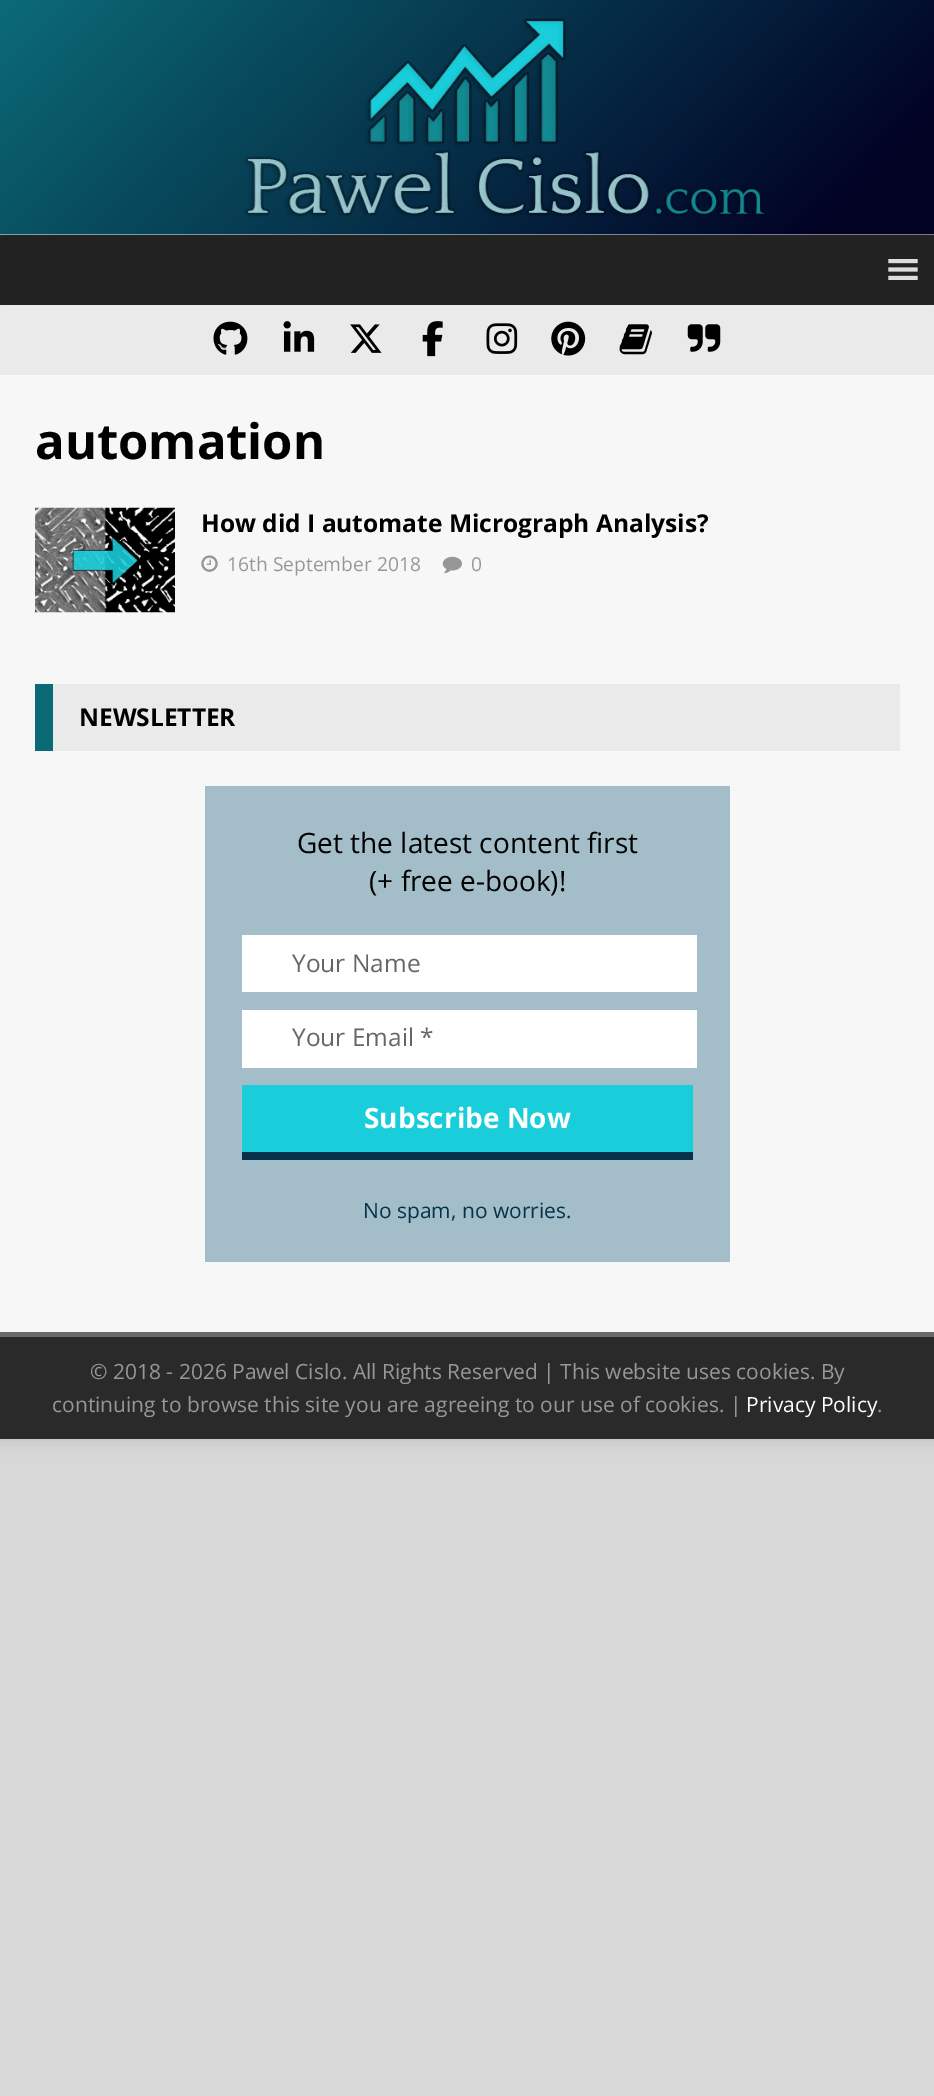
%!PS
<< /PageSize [934 2096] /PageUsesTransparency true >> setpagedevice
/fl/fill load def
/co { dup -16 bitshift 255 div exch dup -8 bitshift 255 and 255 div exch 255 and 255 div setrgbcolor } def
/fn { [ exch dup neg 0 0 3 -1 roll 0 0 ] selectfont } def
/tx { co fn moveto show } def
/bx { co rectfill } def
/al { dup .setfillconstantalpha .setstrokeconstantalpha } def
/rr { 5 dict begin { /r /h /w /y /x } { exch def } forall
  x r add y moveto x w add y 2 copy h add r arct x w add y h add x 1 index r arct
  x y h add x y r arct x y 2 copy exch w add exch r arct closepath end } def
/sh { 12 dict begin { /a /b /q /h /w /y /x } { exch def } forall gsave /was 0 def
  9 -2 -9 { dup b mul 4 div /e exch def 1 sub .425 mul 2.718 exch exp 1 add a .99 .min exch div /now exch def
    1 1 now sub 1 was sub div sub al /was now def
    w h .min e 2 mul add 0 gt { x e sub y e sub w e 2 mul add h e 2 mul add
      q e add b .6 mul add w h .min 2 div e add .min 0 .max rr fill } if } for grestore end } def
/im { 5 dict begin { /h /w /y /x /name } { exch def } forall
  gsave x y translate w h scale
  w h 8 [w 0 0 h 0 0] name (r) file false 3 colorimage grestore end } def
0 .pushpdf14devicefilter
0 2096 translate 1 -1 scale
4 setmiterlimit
0 0 934 2096 16#D8D8D8 bx
16#323232 co
0 0 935 1439 0 9 .17 sh
0 234 934 1 16#F7F7F7 bx
(media/1.raw) 0 0 934 235 im
0 235 934 70 16#2A2A2A bx
16#222222 co
0 235 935 70 4 rr fl
(media/2.raw) 888 259 30 21 im
0 305 934 70 16#EAEAEA bx
(media/3.raw) 213 321 35 34 im
(media/4.raw) 283 321 32 31 im
(media/5.raw) 350 324 32 29 im
(media/6.raw) 422 321 21 36 im
(media/7.raw) 486 323 32 31 im
(media/8.raw) 551 321 35 35 im
(media/9.raw) 619 324 33 31 im
(media/10.raw) 687 324 34 28 im
0 375 934 957 16#F7F7F7 bx
(media/11.raw) 35 507 140 106 im
(media/12.raw) 201 555 17 17 im
(media/13.raw) 442 556 20 18 im
53 684 847 67 16#EAEAEA bx
35 684 18 67 16#0A6A75 bx
205 786 525 476 16#A3BEC9 bx
242 935 455 57 16#FFFFFF bx
242 1010 455 58 16#FFFFFF bx
242 1152 451 8 16#06334B bx
242 1085 451 67 16#19CEDA bx
0 1337 934 102 16#2A2A2A bx
0 1332 934 5 16#6A6A6A bx
(automation) 35 459 /OpenSans-Bold 49 16#000000 tx
(How did I automate Micrograph Analysis?) 201 532 /OpenSans-Bold 24.5 16#000000 tx
(16th September 2018) 227 571 /OpenSans-Regular 19.25 16#979797 tx
(0) 471 571 /OpenSans-Regular 19.25 16#979797 tx
(NEWSLETTER) 79 726 /OpenSans-Bold 24.5 16#000000 tx
(Get the latest content first) 297 853 /OpenSans-Regular 28 16#000000 tx
(\(+ free e-book\)!) 369 891 /OpenSans-Regular 28 16#000000 tx
(Your Name) 292 972 /OpenSans-Regular 24.5 16#666666 tx
(Your Email *) 292 1046 /OpenSans-Regular 24.5 16#666666 tx
(Subscribe Now) 364 1128 /OpenSans-Bold 28 16#FFFFFF tx
(No spam, no worries.) 363 1218 /OpenSans-Regular 21 16#06334B tx
(© 2018 - 2026 Pawel Cislo. All Rights Reserved | This website uses cookies. By) 90 1379 /OpenSans-Regular 21 16#979797 tx
(continuing to browse this site you are agreeing to our use of cookies. |) 52 1412 /OpenSans-Regular 21 16#979797 tx
(Privacy Policy) 746 1412 /OpenSans-Regular 21 16#FFFFFF tx
(.) 877 1412 /OpenSans-Regular 21 16#979797 tx
.poppdf14devicefilter showpage
